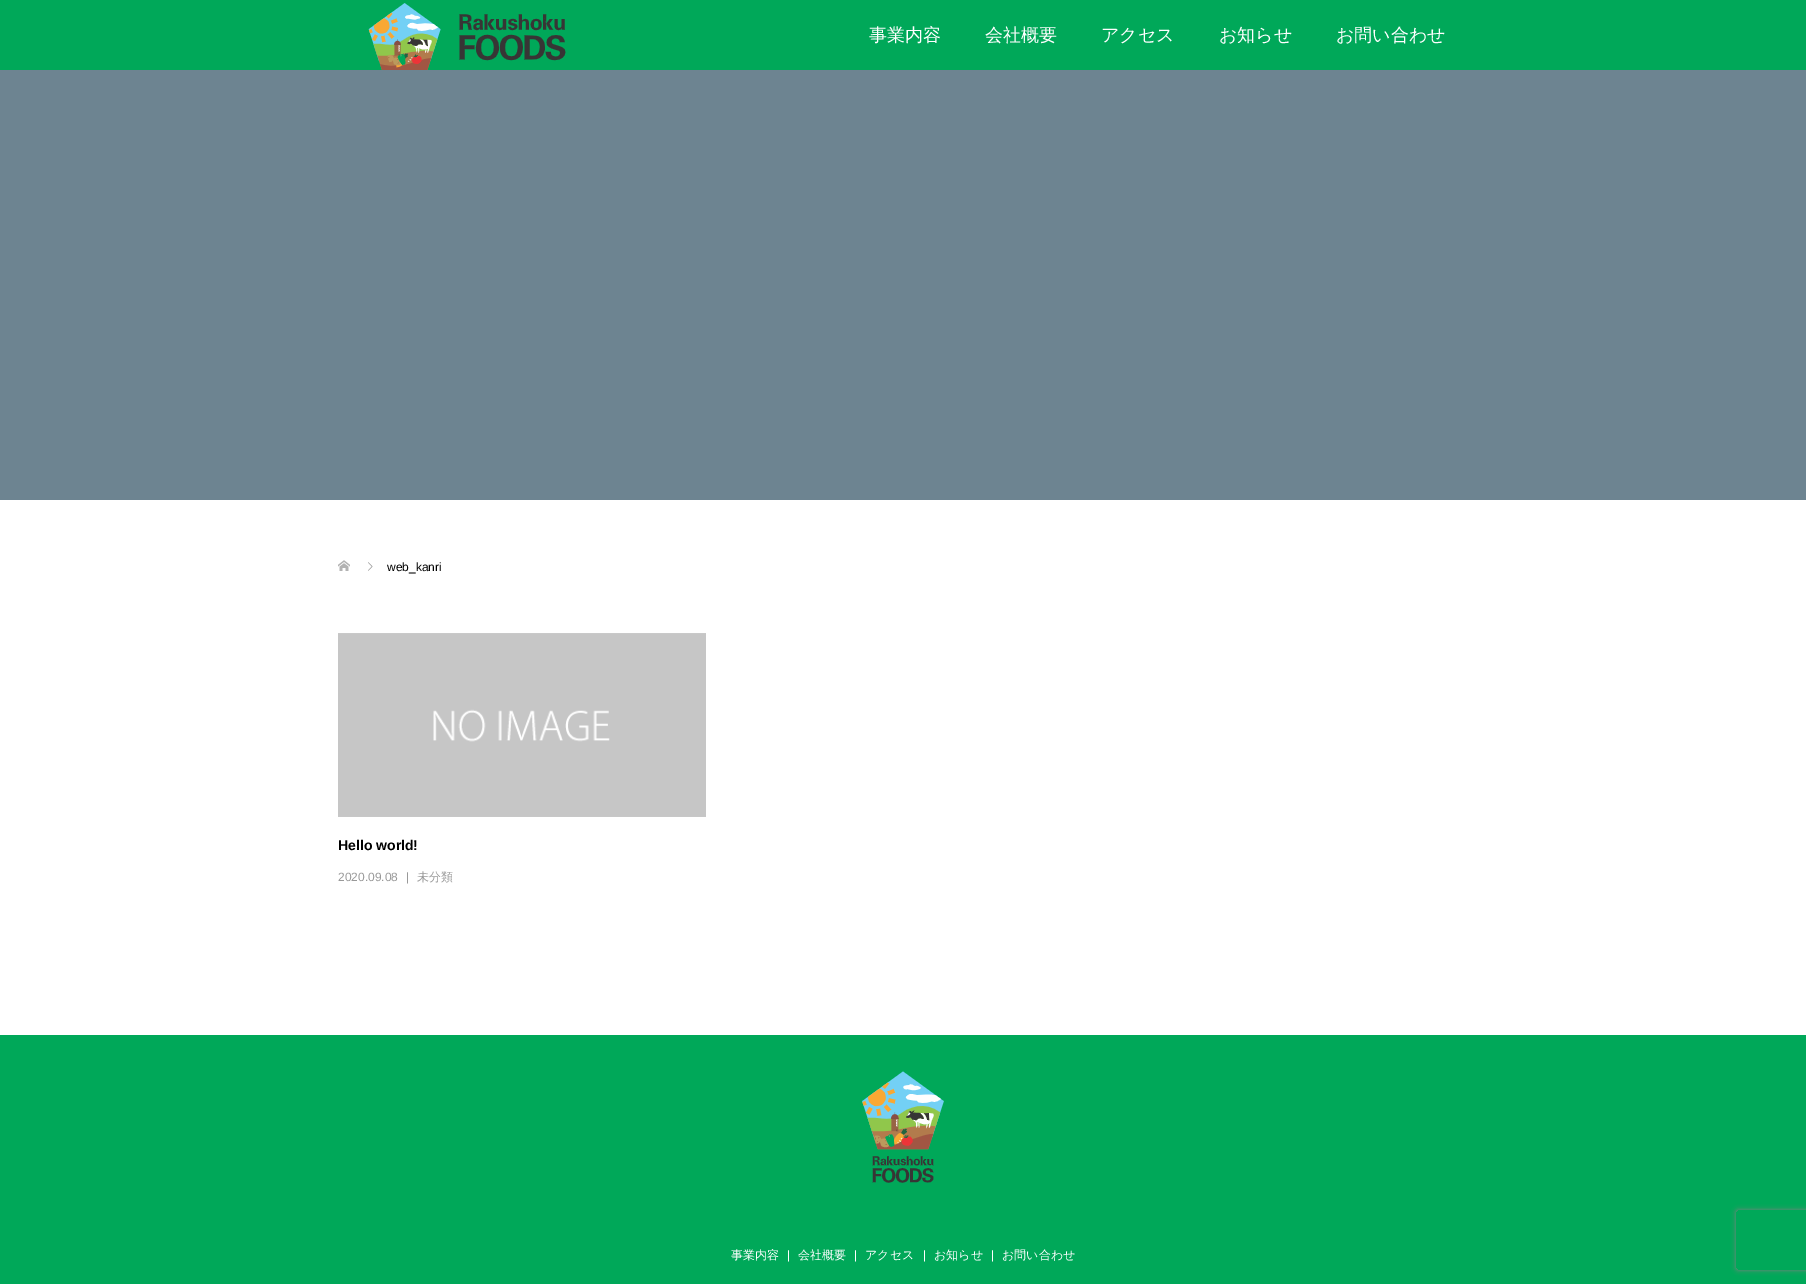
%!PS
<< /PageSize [1806 1284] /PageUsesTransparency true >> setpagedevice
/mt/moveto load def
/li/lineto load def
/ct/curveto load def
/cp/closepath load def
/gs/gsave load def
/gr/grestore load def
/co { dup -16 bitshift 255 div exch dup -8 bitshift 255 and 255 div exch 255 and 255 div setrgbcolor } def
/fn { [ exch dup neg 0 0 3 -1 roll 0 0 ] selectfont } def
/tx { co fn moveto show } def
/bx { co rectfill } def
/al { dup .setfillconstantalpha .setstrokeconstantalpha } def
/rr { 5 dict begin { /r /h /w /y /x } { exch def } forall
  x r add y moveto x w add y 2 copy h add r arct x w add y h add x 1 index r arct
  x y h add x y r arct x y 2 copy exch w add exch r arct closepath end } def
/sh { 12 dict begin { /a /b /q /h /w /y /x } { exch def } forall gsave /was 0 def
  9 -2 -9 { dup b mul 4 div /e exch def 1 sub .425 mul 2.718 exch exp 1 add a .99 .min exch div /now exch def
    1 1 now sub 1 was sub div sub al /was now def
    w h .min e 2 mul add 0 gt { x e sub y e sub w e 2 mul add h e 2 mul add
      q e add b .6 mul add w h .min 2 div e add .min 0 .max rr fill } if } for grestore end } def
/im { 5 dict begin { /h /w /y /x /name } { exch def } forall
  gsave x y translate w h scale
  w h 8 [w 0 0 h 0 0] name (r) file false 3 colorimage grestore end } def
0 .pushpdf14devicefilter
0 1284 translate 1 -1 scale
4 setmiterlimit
0 0 1806 1284 16#FFFFFF bx
0 0 1806 70 16#00A859 bx
(media/1.raw) 368 3 198 67 im
0 70 1806 430 16#6D8491 bx
(media/2.raw) 338 560 12 11 im
(media/3.raw) 368 562 5 9 im
(media/4.raw) 338 633 368 184 im
0 1035 1806 249 16#00A859 bx
(media/5.raw) 862 1071 82 112 im
gs
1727 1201 mt 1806 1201 li 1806 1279 li 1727 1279 li cp 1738 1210 mt 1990 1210 li 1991 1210 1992 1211 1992 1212 ct 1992 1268 li 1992 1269 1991 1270 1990 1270 ct 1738 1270 li 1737 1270 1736 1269 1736 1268 ct 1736 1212 li 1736 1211 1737 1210 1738 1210 ct cp eoclip newpath
16#808080 co
1736 1210 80 60 2 2.5 1 sh
gr
(事業内容) 869 41 /WenQuanYiZenHei-Medium 18 16#FFFFFF tx
(会社概要) 985 41 /WenQuanYiZenHei-Medium 18 16#FFFFFF tx
(アクセス) 1101 41 /WenQuanYiZenHei-Medium 18 16#FFFFFF tx
(お知らせ) 1219 41 /WenQuanYiZenHei-Medium 18 16#FFFFFF tx
(お問い合わせ) 1336 41 /WenQuanYiZenHei-Medium 18 16#FFFFFF tx
(web_kanri) 387 571 /LiberationSans-Regular 12 16#000000 tx
(Hello world!) 338 850 /LiberationSans-Bold 14 16#000000 tx
(2020.09.08) 338 881 /LiberationSans-Regular 12 16#999999 tx
(|) 406 881 /LiberationSans-Regular 12 16#999999 tx
(未分類) 417 881 /WenQuanYiZenHei-Medium 12 16#999999 tx
(事業内容) 731 1259 /WenQuanYiZenHei-Medium 12 16#FFFFFF tx
(|) 787 1259 /LiberationSans-Regular 12 16#FFFFFF tx
(会社概要) 798 1259 /WenQuanYiZenHei-Medium 12 16#FFFFFF tx
(|) 854 1259 /LiberationSans-Regular 12 16#FFFFFF tx
(アクセス) 865 1259 /WenQuanYiZenHei-Medium 12 16#FFFFFF tx
(|) 923 1259 /LiberationSans-Regular 12 16#FFFFFF tx
(お知らせ) 934 1259 /WenQuanYiZenHei-Medium 12 16#FFFFFF tx
(|) 991 1259 /LiberationSans-Regular 12 16#FFFFFF tx
(お問い合わせ) 1002 1259 /WenQuanYiZenHei-Medium 12 16#FFFFFF tx
.poppdf14devicefilter showpage
